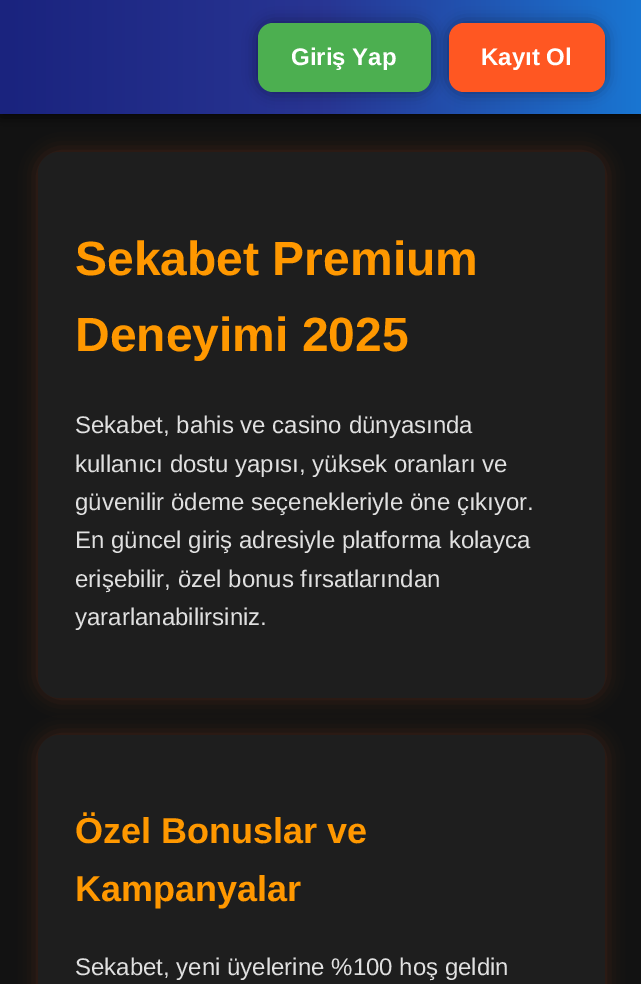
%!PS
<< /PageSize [641 984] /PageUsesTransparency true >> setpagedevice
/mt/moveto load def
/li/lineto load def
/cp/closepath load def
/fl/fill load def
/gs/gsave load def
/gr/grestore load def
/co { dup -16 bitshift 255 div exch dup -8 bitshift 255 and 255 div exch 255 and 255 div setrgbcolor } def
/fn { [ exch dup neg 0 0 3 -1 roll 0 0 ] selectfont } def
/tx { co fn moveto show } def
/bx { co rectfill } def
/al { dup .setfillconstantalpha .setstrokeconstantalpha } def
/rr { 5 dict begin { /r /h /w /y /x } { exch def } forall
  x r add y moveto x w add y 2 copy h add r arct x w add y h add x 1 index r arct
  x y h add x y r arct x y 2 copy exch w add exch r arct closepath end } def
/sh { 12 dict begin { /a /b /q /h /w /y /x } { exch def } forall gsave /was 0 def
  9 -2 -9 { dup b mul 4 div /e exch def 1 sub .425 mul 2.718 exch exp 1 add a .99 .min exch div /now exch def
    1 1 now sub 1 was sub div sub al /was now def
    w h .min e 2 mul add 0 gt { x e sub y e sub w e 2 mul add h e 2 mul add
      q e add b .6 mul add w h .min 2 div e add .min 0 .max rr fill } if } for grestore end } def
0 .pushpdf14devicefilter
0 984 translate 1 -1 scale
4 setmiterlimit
0 0 641 984 16#121212 bx
16#000000 co
0 3 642 114 0 7.5 .7 sh
gs 0 0 mt 641 0 li 641 114 li 0 114 li cp clip newpath
<< /ShadingType 2 /ColorSpace /DeviceRGB /Coords [0 57 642 57] /Extend [true true] /Function << /FunctionType 3 /Domain [0 1] /Functions [<< /FunctionType 2 /Domain [0 1] /C0 [.102 .137 .494] /C1 [.157 .208 .576] /N 1 >> << /FunctionType 2 /Domain [0 1] /C0 [.157 .208 .576] /C1 [.098 .463 .824] /N 1 >>] /Bounds [.5] /Encode [0 1 0 1] >> >> shfill gr
258 23 173 69 15 7.5 .4 sh
16#4CAF50 co
258 23 173 69 15 rr fl
16#000000 co
449 23 156 69 15 7.5 .4 sh
16#FF5722 co
449 23 156 69 15 rr fl
38 152 567 546 21 9 .2 sh
16#1E1E1E co
38 152 567 546 21 rr fl
16#FF5722 co
38 735 567 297 21 9 .2 sh
16#1E1E1E co
38 735 567 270 21 rr fl
(Giriş Yap) 291 65 /LiberationSans-Bold 24 16#FFFFFF tx
(Kayıt Ol) 481 65 /LiberationSans-Bold 24 16#FFFFFF tx
(Sekabet Premium) 75 275 /LiberationSans-Bold 48 16#FF9800 tx
(Deneyimi 2025) 75 351 /LiberationSans-Bold 48 16#FF9800 tx
(Sekabet, bahis ve casino dünyasında) 75 433 /LiberationSans-Regular 24 16#E0E0E0 tx
(kullanıcı dostu yapısı, yüksek oranları ve) 75 472 /LiberationSans-Regular 24 16#E0E0E0 tx
(güvenilir ödeme seçenekleriyle öne çıkıyor.) 75 510 /LiberationSans-Regular 24 16#E0E0E0 tx
(En güncel giriş adresiyle platforma kolayca) 75 548 /LiberationSans-Regular 24 16#E0E0E0 tx
(erişebilir, özel bonus fırsatlarından) 75 587 /LiberationSans-Regular 24 16#E0E0E0 tx
(yararlanabilirsiniz.) 75 625 /LiberationSans-Regular 24 16#E0E0E0 tx
(Özel Bonuslar ve) 75 843 /LiberationSans-Bold 36 16#FF9800 tx
(Kampanyalar) 75 901 /LiberationSans-Bold 36 16#FF9800 tx
(Sekabet, yeni üyelerine %100 hoş geldin) 75 975 /LiberationSans-Regular 24 16#E0E0E0 tx
.poppdf14devicefilter showpage
